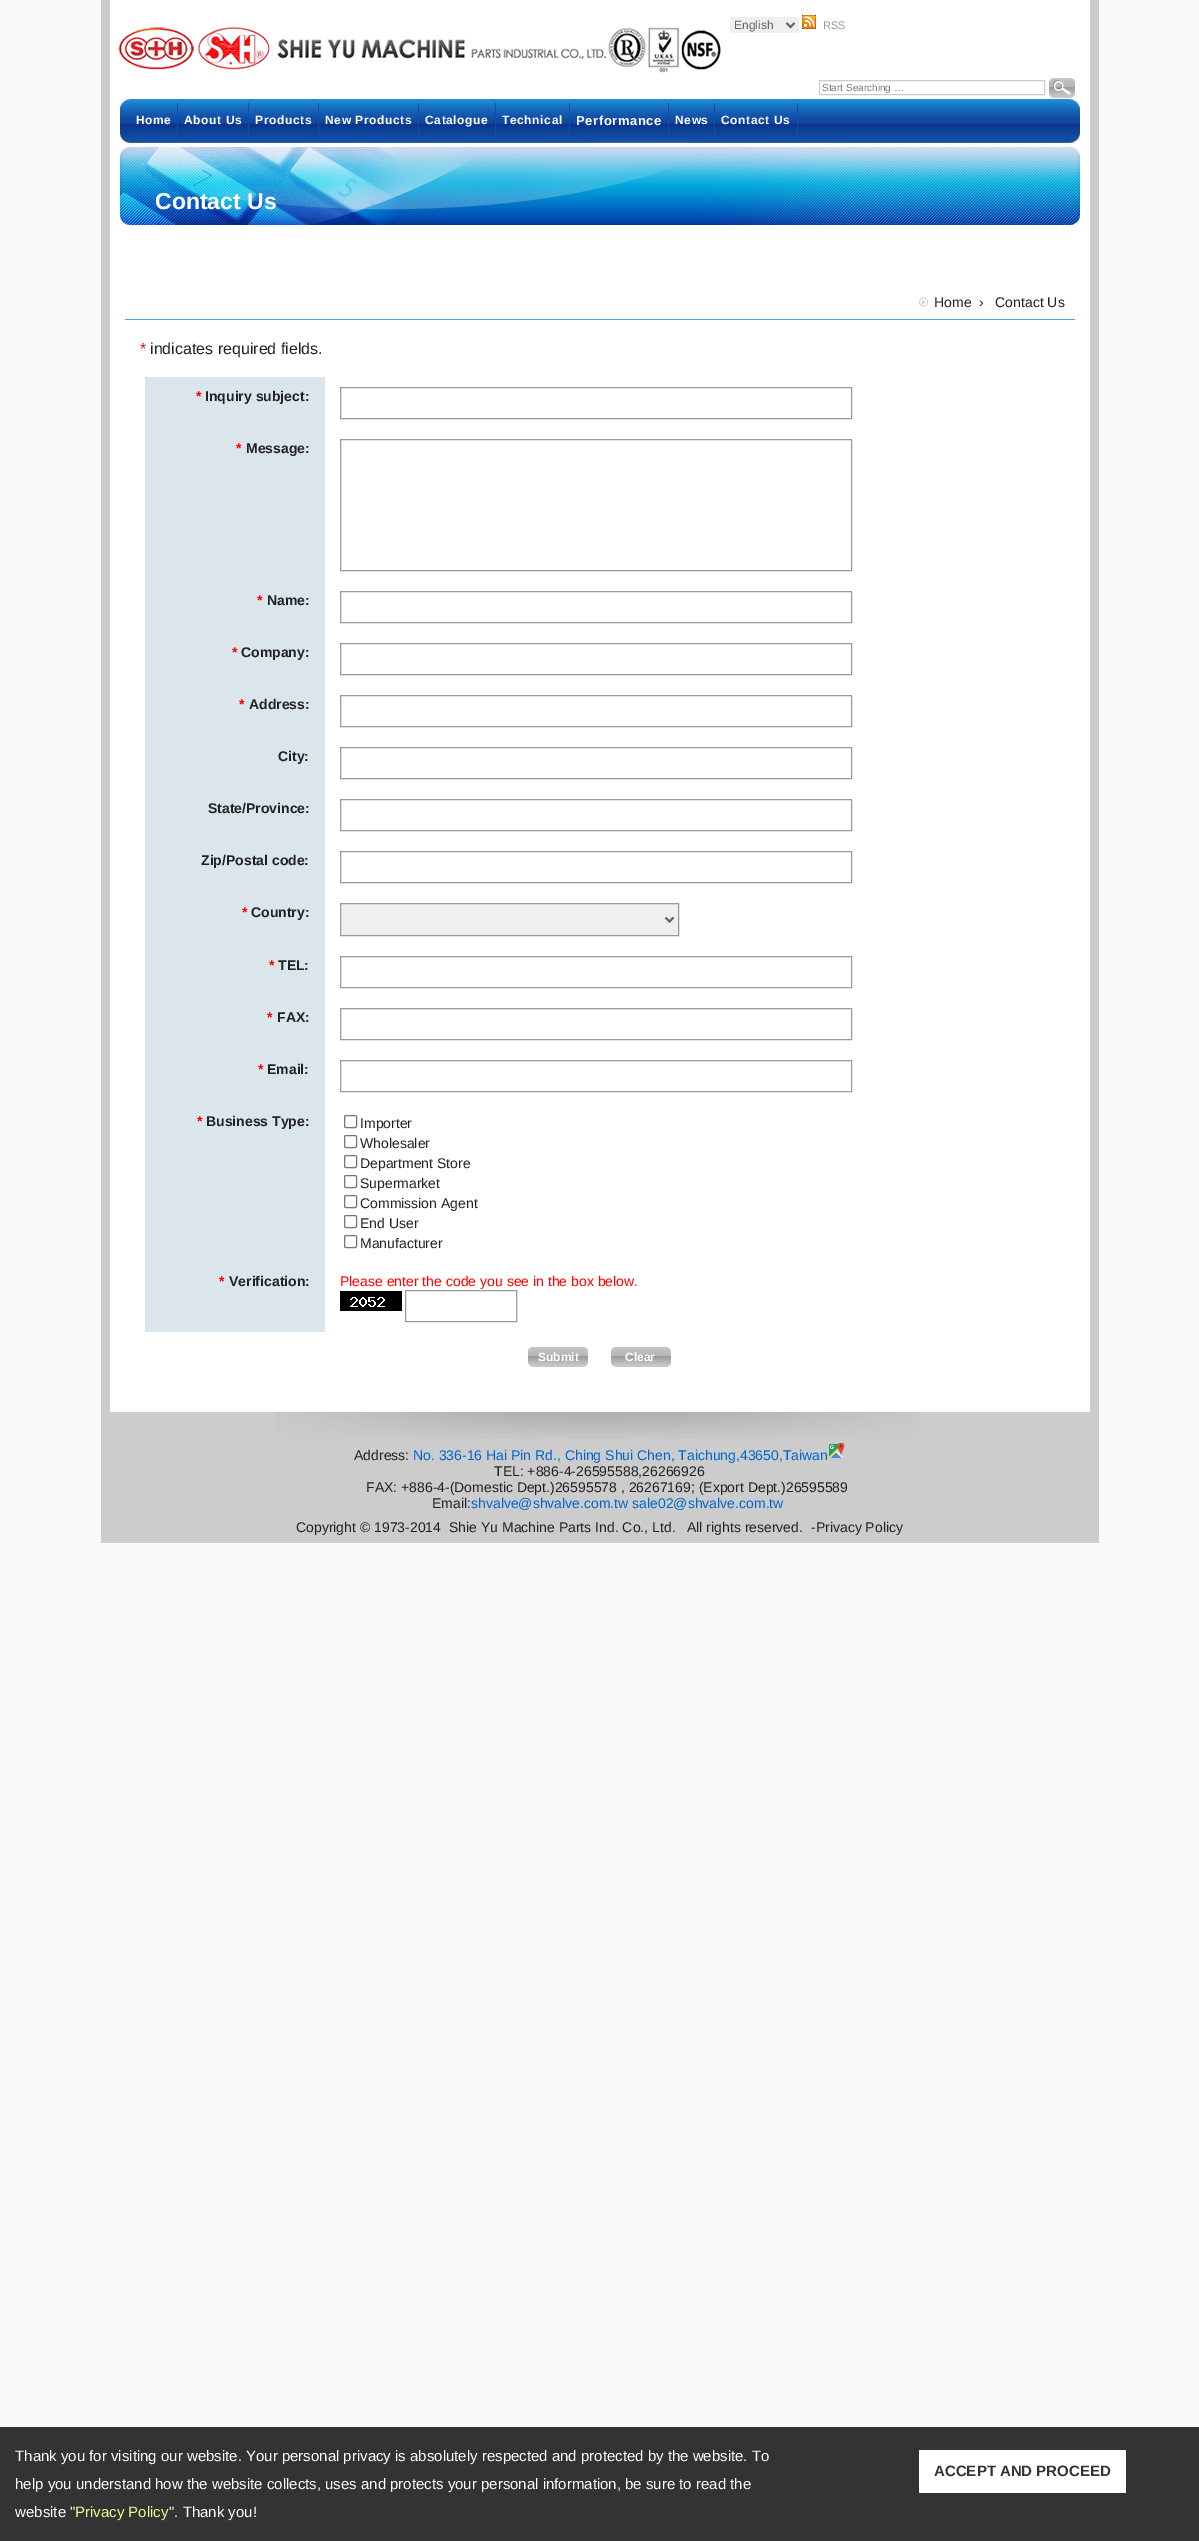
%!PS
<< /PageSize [1199 2541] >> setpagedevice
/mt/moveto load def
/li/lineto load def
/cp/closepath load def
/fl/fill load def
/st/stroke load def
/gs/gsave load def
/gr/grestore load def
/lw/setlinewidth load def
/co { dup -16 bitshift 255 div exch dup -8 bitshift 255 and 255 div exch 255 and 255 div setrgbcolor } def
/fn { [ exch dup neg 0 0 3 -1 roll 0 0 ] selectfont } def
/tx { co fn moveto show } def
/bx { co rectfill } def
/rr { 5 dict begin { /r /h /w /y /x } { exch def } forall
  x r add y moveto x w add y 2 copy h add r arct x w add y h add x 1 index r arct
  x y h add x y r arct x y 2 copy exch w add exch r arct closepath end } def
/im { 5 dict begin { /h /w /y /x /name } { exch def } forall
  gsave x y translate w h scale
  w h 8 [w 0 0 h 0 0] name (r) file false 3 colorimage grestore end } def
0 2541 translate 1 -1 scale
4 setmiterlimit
0 0 1199 2541 16#F9F9F9 bx
110 0 980 1412 16#FFFFFF bx
1090 0 9 1543 16#CCCCCC bx
101 0 9 1543 16#CCCCCC bx
(media/1.raw) 118 27 603 46 im
730 17 69 16 16#EFEFEF bx
16#666666 co
2 lw
786.5 23 mt 790.5 27 li 794.5 23 li st
(media/2.raw) 802 15 14 14 im
16#CCCCCC co
1 lw
819.5 80.5 225 14 rectstroke
(media/3.raw) 1049 78 26 20 im
(media/4.raw) 120 99 960 44 im
177 103 1 34 16#114EA5 bx
248 103 1 34 16#114EA5 bx
318 103 1 34 16#114EA5 bx
418 103 1 34 16#114EA5 bx
495 103 1 34 16#114EA5 bx
569 103 1 34 16#114EA5 bx
668 103 1 35 16#114EA5 bx
714 103 1 34 16#114EA5 bx
797 103 1 34 16#114EA5 bx
(media/5.raw) 120 143 960 82 im
125 319 950 1 16#45A4E0 bx
(media/6.raw) 919 297 9 10 im
145 377 180 955 16#DAE5EC bx
16#999999 co
340.5 387.5 511 31 rectstroke
340.5 439.5 511 131 rectstroke
340.5 591.5 511 31 rectstroke
340.5 643.5 511 31 rectstroke
340.5 695.5 511 31 rectstroke
340.5 747.5 511 31 rectstroke
340.5 799.5 511 31 rectstroke
340.5 851.5 511 31 rectstroke
16#EFEFEF co
340.5 903.5 mt 678.5 903.5 li 678.5 935.5 li 340.5 935.5 li cp gs fl gr
16#999999 co
st
16#666666 co
2 lw
665.5 917.5 mt 669.5 921.5 li 673.5 917.5 li st
16#999999 co
1 lw
340.5 956.5 511 31 rectstroke
340.5 1008.5 511 31 rectstroke
340.5 1060.5 511 31 rectstroke
16#767676 co
344.5 1115.5 12 12 1.5 rr st
344.5 1135.5 12 12 1.5 rr st
344.5 1155.5 12 12 1.5 rr st
344.5 1175.5 12 12 1.5 rr st
344.5 1195.5 12 12 1.5 rr st
344.5 1215.5 12 12 1.5 rr st
344.5 1235.5 12 12 1.5 rr st
(media/7.raw) 340 1291 62 20 im
16#999999 co
405.5 1290.5 111 31 rectstroke
(media/8.raw) 528 1347 60 20 im
(media/8.raw) 611 1347 60 20 im
110 1412 980 131 16#CCCCCC bx
(media/9.raw) 275 1412 645 27 im
(media/10.raw) 829 1442 16 16 im
0 2427 1199 114 16#333333 bx
919 2450 207 43 16#FFFFFF bx
(English) 734 29 /LiberationSans-Regular 12 16#666666 tx
(RSS) 823 29 /LiberationSans-Regular 11 16#999999 tx
(Start Searching …) 822 91 /LiberationSans-Regular 10 16#757575 tx
/LiberationSans-Bold 12 fn
16#FFFFFF co
136 124 mt .6 0 (Home) ashow
184 124 mt .6 0 (About Us) ashow
255 124 mt .6 0 (Products) ashow
325 124 mt .6 0 (New Products) ashow
425 124 mt .6 0 (Catalogue) ashow
502 124 mt .6 0 (Technical) ashow
/LiberationSans-Bold 13 fn
576 125 mt .6 0 (Performance) ashow
/LiberationSans-Bold 12 fn
675 124 mt .6 0 (News) ashow
721 124 mt .6 0 (Contact Us) ashow
(Contact Us) 155 209 /LiberationSans-Bold 23 16#FFFFFF tx
(Home) 934 307 /LiberationSans-Regular 14 16#222222 tx
(›   Contact Us) 979 307 /LiberationSans-Regular 14 16#222222 tx
(*) 140 354 /LiberationSans-Regular 16 16#FF0000 tx
(indicates required fields.) 150 354 /LiberationSans-Regular 16 16#222222 tx
(*) 196 401 /LiberationSans-Bold 14 16#FF0000 tx
(Inquiry subject:) 205 401 /LiberationSans-Bold 14 16#222222 tx
(*) 236 453 /LiberationSans-Bold 14 16#FF0000 tx
(Message:) 246 453 /LiberationSans-Bold 14 16#222222 tx
(*) 257 605 /LiberationSans-Bold 14 16#FF0000 tx
(Name:) 267 605 /LiberationSans-Bold 14 16#222222 tx
(*) 232 657 /LiberationSans-Bold 14 16#FF0000 tx
(Company:) 241 657 /LiberationSans-Bold 14 16#222222 tx
(*) 239 709 /LiberationSans-Bold 14 16#FF0000 tx
(Address:) 249 709 /LiberationSans-Bold 14 16#222222 tx
(City:) 278 761 /LiberationSans-Bold 14 16#222222 tx
(State/Province:) 208 813 /LiberationSans-Bold 14 16#222222 tx
(Zip/Postal code:) 201 865 /LiberationSans-Bold 14 16#222222 tx
(*) 242 917 /LiberationSans-Bold 14 16#FF0000 tx
(Country:) 251 917 /LiberationSans-Bold 14 16#222222 tx
(*) 269 970 /LiberationSans-Bold 14 16#FF0000 tx
(TEL:) 278 970 /LiberationSans-Bold 14 16#222222 tx
(*) 267 1022 /LiberationSans-Bold 14 16#FF0000 tx
(FAX:) 277 1022 /LiberationSans-Bold 14 16#222222 tx
(*) 258 1074 /LiberationSans-Bold 14 16#FF0000 tx
(Email:) 267 1074 /LiberationSans-Bold 14 16#222222 tx
(*) 197 1126 /LiberationSans-Bold 14 16#FF0000 tx
(Business Type:) 206 1126 /LiberationSans-Bold 14 16#222222 tx
(Importer) 360 1128 /LiberationSans-Regular 14 16#222222 tx
(Wholesaler) 360 1148 /LiberationSans-Regular 14 16#222222 tx
(Department Store) 360 1168 /LiberationSans-Regular 14 16#222222 tx
(Supermarket) 360 1188 /LiberationSans-Regular 14 16#222222 tx
(Commission Agent) 360 1208 /LiberationSans-Regular 14 16#222222 tx
(End User) 360 1228 /LiberationSans-Regular 14 16#222222 tx
(Manufacturer) 360 1248 /LiberationSans-Regular 14 16#222222 tx
(*) 219 1286 /LiberationSans-Bold 14 16#FF0000 tx
(Verification:) 229 1286 /LiberationSans-Bold 14 16#222222 tx
(Please enter the code you see in the box below.) 340 1286 /LiberationSans-Regular 14 16#FF0000 tx
(Submit) 538 1361 /LiberationSans-Bold 12 16#FFFFFF tx
(Clear) 625 1361 /LiberationSans-Bold 12 16#FFFFFF tx
(Address:) 354 1460 /LiberationSans-Regular 14 16#222222 tx
(No. 336-16 Hai Pin Rd., Ching Shui Chen, Taichung,43650,Taiwan) 413 1460 /LiberationSans-Regular 14 16#0066CC tx
(TEL: +886-4-26595588,26266926) 494 1476 /LiberationSans-Regular 14 16#222222 tx
(FAX: +886-4-\(Domestic Dept.\)26595578 , 26267169; \(Export Dept.\)26595589) 366 1492 /LiberationSans-Regular 14 16#222222 tx
(Email:) 432 1508 /LiberationSans-Regular 14 16#222222 tx
(shvalve@shvalve.com.tw sale02@shvalve.com.tw) 471 1508 /LiberationSans-Regular 14 16#0066CC tx
(Copyright © 1973-2014) 296 1532 /LiberationSans-Regular 14 16#222222 tx
(Shie Yu Machine Parts Ind. Co., Ltd.) 449 1532 /LiberationSans-Regular 14 16#222222 tx
(All rights reserved.) 687 1532 /LiberationSans-Regular 14 16#222222 tx
(-Privacy Policy) 811 1532 /LiberationSans-Regular 14 16#222222 tx
(Thank you for visiting our website. Your personal privacy is absolutely respected and protected by the website. To) 15 2461 /LiberationSans-Regular 15 16#FFFFFF tx
(help you understand how the website collects, uses and protects your personal information, be sure to read the) 15 2489 /LiberationSans-Regular 15 16#FFFFFF tx
(website ") 15 2517 /LiberationSans-Regular 15 16#FFFFFF tx
(Privacy Policy) 75 2517 /LiberationSans-Regular 15 16#F7F795 tx
(". Thank you!) 169 2517 /LiberationSans-Regular 15 16#FFFFFF tx
(ACCEPT AND PROCEED) 934 2476 /LiberationSans-Bold 15 16#333333 tx
showpage
